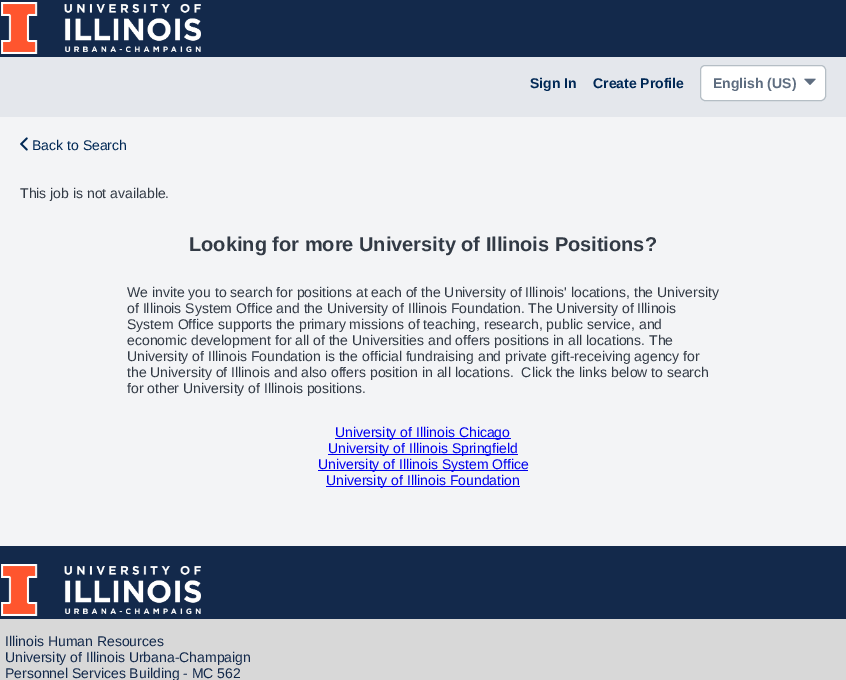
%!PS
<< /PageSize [846 680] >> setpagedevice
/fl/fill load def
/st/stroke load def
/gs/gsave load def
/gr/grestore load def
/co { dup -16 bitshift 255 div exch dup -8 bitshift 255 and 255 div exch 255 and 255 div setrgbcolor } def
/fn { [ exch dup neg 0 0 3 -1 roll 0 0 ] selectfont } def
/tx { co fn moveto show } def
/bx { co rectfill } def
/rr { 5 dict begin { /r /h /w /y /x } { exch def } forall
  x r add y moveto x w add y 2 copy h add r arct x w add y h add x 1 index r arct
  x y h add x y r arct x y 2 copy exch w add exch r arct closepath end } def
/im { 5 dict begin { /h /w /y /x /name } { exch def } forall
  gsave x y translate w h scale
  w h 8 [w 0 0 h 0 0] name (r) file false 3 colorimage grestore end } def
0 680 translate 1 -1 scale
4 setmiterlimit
0 0 846 680 16#F3F4F6 bx
0 0 846 57 16#13294B bx
(media/1.raw) 1 2 200 52 im
0 57 846 60 16#E4E7EC bx
16#FFFFFF co
700.5 65.5 125 35 4.5 rr gs fl gr
16#B5BEC5 co
st
(media/2.raw) 804 78 12 7 im
(media/3.raw) 20 137 8 14 im
335 438 176 1 16#0000EE bx
328 454 190 1 16#0000EE bx
318 470 210 1 16#0000EE bx
326 486 194 1 16#0000EE bx
0 546 846 73 16#13294B bx
(media/1.raw) 1 564 200 52 im
0 619 846 61 16#D8D8D8 bx
(Sign In) 530 88 /LiberationSans-Bold 14 16#002855 tx
(Create Profile) 593 88 /LiberationSans-Bold 14 16#002855 tx
(English \(US\)) 713 88 /LiberationSans-Bold 14 16#5E6D80 tx
(Back to Search) 32 150 /LiberationSans-Regular 14 16#002855 tx
(This job is not available.) 20 198 /LiberationSans-Regular 14 16#323A45 tx
(Looking for more University of Illinois Positions?) 189 251 /LiberationSans-Bold 20 16#323A45 tx
(We invite you to search for positions at each of the University of Illinois' locations, the University) 127 297 /LiberationSans-Regular 14 16#323A45 tx
(of Illinois System Office and the University of Illinois Foundation. The University of Illinois) 127 313 /LiberationSans-Regular 14 16#323A45 tx
(System Office supports the primary missions of teaching, research, public service, and) 127 329 /LiberationSans-Regular 14 16#323A45 tx
(economic development for all of the Universities and offers positions in all locations. The) 127 345 /LiberationSans-Regular 14 16#323A45 tx
(University of Illinois Foundation is the official fundraising and private gift-receiving agency for) 127 361 /LiberationSans-Regular 14 16#323A45 tx
(the University of Illinois and also offers position in all locations.  Click the links below to search) 127 377 /LiberationSans-Regular 14 16#323A45 tx
(for other University of Illinois positions.) 127 393 /LiberationSans-Regular 14 16#323A45 tx
(University of Illinois Chicago) 335 437 /LiberationSans-Regular 14 16#0000EE tx
(University of Illinois Springfield) 328 453 /LiberationSans-Regular 14 16#0000EE tx
(University of Illinois System Office) 318 469 /LiberationSans-Regular 14 16#0000EE tx
(University of Illinois Foundation) 326 485 /LiberationSans-Regular 14 16#0000EE tx
(Illinois Human Resources) 5 646 /LiberationSans-Regular 14 16#13294B tx
(University of Illinois Urbana-Champaign) 5 662 /LiberationSans-Regular 14 16#13294B tx
(Personnel Services Building - MC 562) 5 678 /LiberationSans-Regular 14 16#13294B tx
showpage
